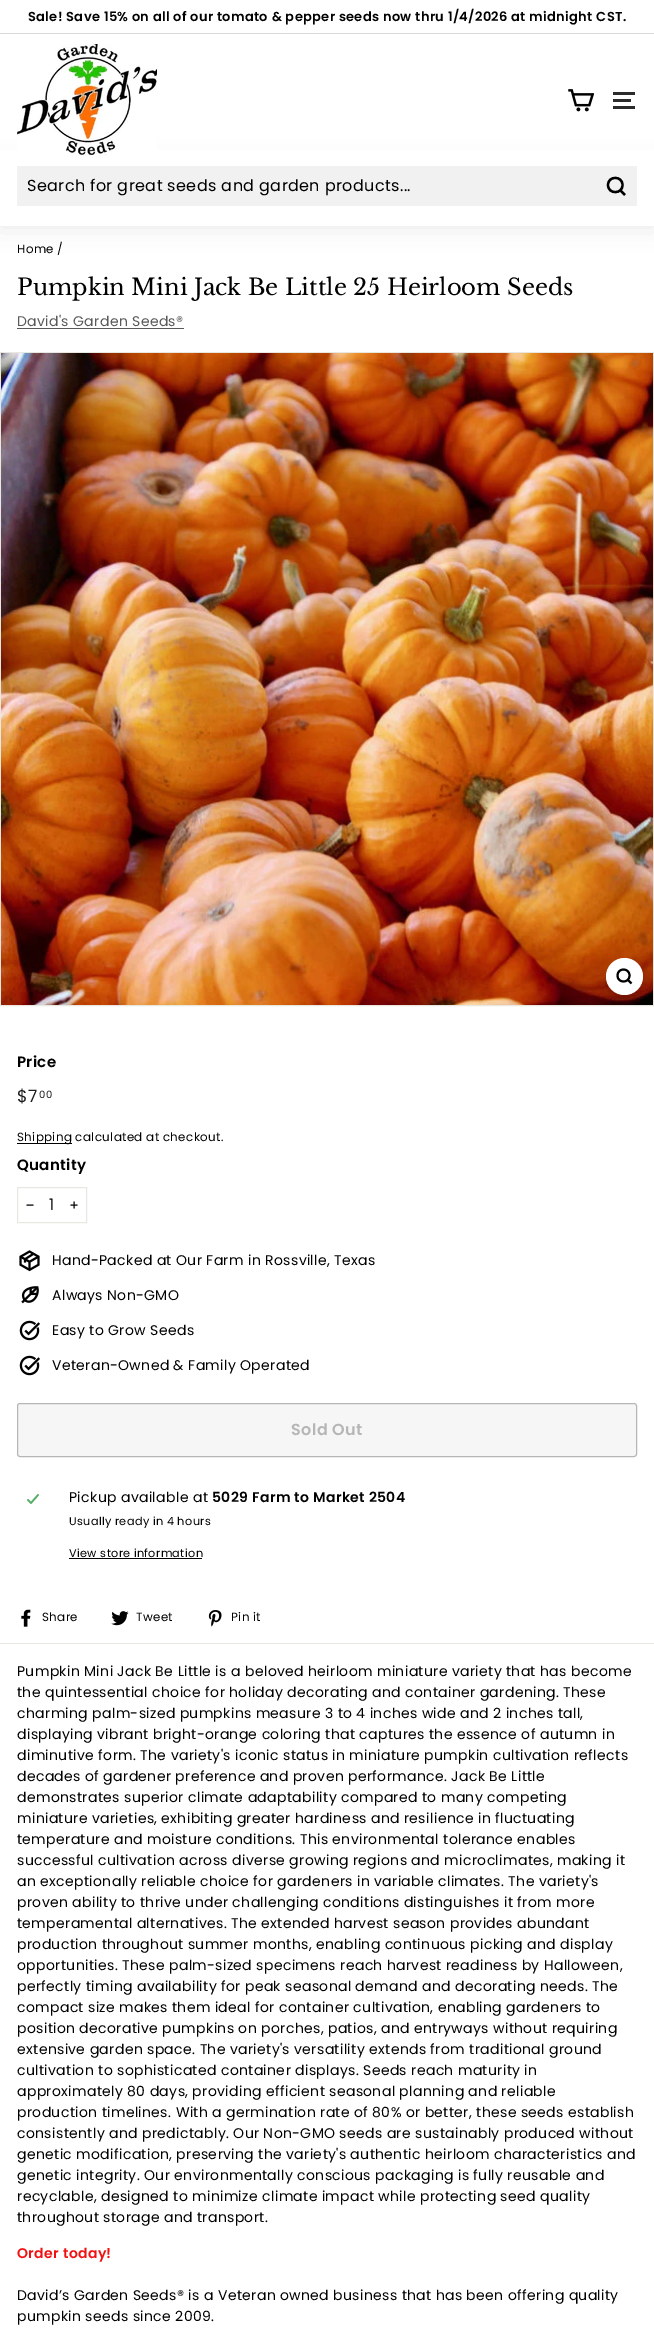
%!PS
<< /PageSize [654 2339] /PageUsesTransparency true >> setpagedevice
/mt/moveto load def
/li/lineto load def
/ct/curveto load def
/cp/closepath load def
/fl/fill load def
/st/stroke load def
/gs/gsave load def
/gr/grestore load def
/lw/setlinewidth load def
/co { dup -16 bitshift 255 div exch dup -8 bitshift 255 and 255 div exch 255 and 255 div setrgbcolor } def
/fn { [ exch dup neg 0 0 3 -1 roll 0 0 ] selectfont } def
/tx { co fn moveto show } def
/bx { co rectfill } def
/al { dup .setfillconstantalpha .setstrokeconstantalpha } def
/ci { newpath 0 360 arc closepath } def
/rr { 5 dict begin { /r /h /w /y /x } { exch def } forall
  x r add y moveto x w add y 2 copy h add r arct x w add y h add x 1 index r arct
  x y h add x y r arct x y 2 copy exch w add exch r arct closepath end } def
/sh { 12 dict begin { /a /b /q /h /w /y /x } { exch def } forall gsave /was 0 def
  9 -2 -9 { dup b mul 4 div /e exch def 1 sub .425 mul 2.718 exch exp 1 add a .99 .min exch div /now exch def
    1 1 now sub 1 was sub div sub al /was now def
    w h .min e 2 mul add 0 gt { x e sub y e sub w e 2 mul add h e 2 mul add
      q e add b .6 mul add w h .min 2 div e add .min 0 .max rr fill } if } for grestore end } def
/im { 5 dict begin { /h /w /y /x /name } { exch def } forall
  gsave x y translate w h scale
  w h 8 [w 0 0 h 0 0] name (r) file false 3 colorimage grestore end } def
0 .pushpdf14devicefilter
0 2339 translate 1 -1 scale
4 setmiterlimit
0 0 654 2339 16#FFFFFF bx
0 33 654 1 16#D9D9D9 bx
16#000000 co
0 166 654 60 0 12.5 .1 sh
0 150 654 76 16#FFFFFF bx
(media/1.raw) 17 44 140 112 im
(media/2.raw) 568 89 26 23 im
613 92 22 3 16#2B2B2B bx
613 99 18 3 16#2B2B2B bx
613 106 22 3 16#2B2B2B bx
17 166 620 40 16#F1F1F1 bx
16#000000 co
2.3 lw
622.5 185 mt 622.5 194.5 608 194.5 608 185 ct 608 175.5 622.5 175.5 622.5 185 ct cp 625 195 mt 620.5 190.5 li st
17 328 167 1 16#595959 bx
16#E8E8E1 co
1 lw
.5 352.5 653 653 rectstroke
(media/3.raw) 1 353 652 652 im
16#000000 co
606 961 37 37 18.5 3 .15 sh
16#FFFFFF co
624.5 976.5 18.5 ci fl
16#000000 co
2 lw
629.5 975.5 mt 629.5 983.5 617.5 983.5 617.5 975.5 ct 617.5 967.5 629.5 967.5 629.5 975.5 ct cp 631.5 983.5 mt 628 980 li st
17 1143 55 1 16#000000 bx
16#E8E8E1 co
1 lw
17.5 1187.5 69 35 rectstroke
16#000000 co
.9 lw
33.5 1205 mt 26.5 1205 li 74 1201.5 mt 74 1208.5 li 77.5 1205 mt 70.5 1205 li st
(media/4.raw) 19 1250 21 22 im
(media/5.raw) 21 1286 18 18 im
(media/6.raw) 19 1320 21 21 im
(media/6.raw) 19 1355 21 21 im
16#F6F6F6 co
17.5 1403.5 619 53 2.5 rr gs fl gr
16#B6B6B6 co
1 lw
st
(media/7.raw) 27 1494 12 10 im
69 1558 133 1 16#000000 bx
(media/8.raw) 21 1609 10 18 im
(media/9.raw) 111 1611 18 15 im
(media/10.raw) 208 1610 14 17 im
0 1643 654 1 16#E8E8E1 bx
/Poppins-SemiBold 13 fn
16#000000 co
28 21 mt .35 0 (Sale! Save 15% on all of our tomato & pepper seeds now thru 1/4/2026 at midnight CST.) ashow
/Poppins-Regular 16 fn
27 191 mt .4 0 (Search for great seeds and garden products...) ashow
/Poppins-Regular 11.9 fn
17 253 mt .35 0 (Home /) ashow
(Pumpkin Mini Jack Be Little 25 Heirloom Seeds) 17 295 /LibreBaskerville-Regular 22.7 16#000000 tx
/Poppins-Regular 14 fn
16#595959 co
17 326 mt .35 0 (David's Garden Seeds®) ashow
/Poppins-SemiBold 15 fn
16#000000 co
17 1067 mt .35 0 (Price) ashow
/Poppins-Regular 17 fn
16#1C1D1D co
17 1102 mt .35 0 ($7) ashow
/Poppins-Regular 10 fn
39 1098 mt .35 0 (00) ashow
/Poppins-Regular 11.9 fn
16#000000 co
17 1141 mt .35 0 (Shipping calculated at checkout.) ashow
/Poppins-SemiBold 15 fn
17 1170 mt .35 0 (Quantity) ashow
/Poppins-Regular 16 fn
49 1210 mt .4 0 (1) ashow
/Poppins-Regular 14 fn
52 1265 mt .35 0 (Hand-Packed at Our Farm in Rossville, Texas) ashow
52 1300 mt .35 0 (Always Non-GMO) ashow
52 1335 mt .35 0 (Easy to Grow Seeds) ashow
52 1370 mt .35 0 (Veteran-Owned & Family Operated) ashow
/Poppins-SemiBold 16 fn
16#B6B6B6 co
291 1435 mt .4 0 (Sold Out) ashow
/Poppins-Regular 14 fn
16#000000 co
69 1502 mt .35 0 (Pickup available at) ashow
/Poppins-SemiBold 14 fn
212 1502 mt .35 0 (5029 Farm to Market 2504) ashow
/Poppins-Regular 11.25 fn
69 1525 mt .35 0 (Usually ready in 4 hours) ashow
69 1557 mt .35 0 (View store information) ashow
/Poppins-Regular 11.9 fn
42 1621 mt .35 0 (Share) ashow
136 1621 mt .35 0 (Tweet) ashow
231 1621 mt .35 0 (Pin it) ashow
/Poppins-Regular 14 fn
17 1676 mt .35 0 (Pumpkin Mini Jack Be Little is a beloved heirloom miniature variety that has become) ashow
17 1697 mt .35 0 (the quintessential choice for holiday decorating and container gardening. These) ashow
17 1718 mt .35 0 (charming palm-sized pumpkins measure 3 to 4 inches wide and 2 inches tall,) ashow
17 1739 mt .35 0 (displaying vibrant bright-orange coloring that captures the essence of autumn in) ashow
17 1760 mt .35 0 (diminutive form. The variety's iconic status in miniature pumpkin cultivation reflects) ashow
17 1781 mt .35 0 (decades of gardener preference and proven performance. Jack Be Little) ashow
17 1802 mt .35 0 (demonstrates superior climate adaptability compared to many competing) ashow
17 1823 mt .35 0 (miniature varieties, exhibiting greater hardiness and resilience in fluctuating) ashow
17 1844 mt .35 0 (temperature and moisture conditions. This environmental tolerance enables) ashow
17 1865 mt .35 0 (successful cultivation across diverse growing regions and microclimates, making it) ashow
17 1886 mt .35 0 (an exceptionally reliable choice for gardeners in variable climates. The variety's) ashow
17 1907 mt .35 0 (proven ability to thrive under challenging conditions distinguishes it from more) ashow
17 1928 mt .35 0 (temperamental alternatives. The extended harvest season provides abundant) ashow
17 1949 mt .35 0 (production throughout summer months, enabling continuous picking and display) ashow
17 1970 mt .35 0 (opportunities. These palm-sized specimens reach harvest readiness by Halloween,) ashow
17 1991 mt .35 0 (perfectly timing availability for peak seasonal demand and decorating needs. The) ashow
17 2012 mt .35 0 (compact size makes them ideal for container cultivation, enabling gardeners to) ashow
17 2033 mt .35 0 (position decorative pumpkins on porches, patios, and entryways without requiring) ashow
17 2054 mt .35 0 (extensive garden space. The variety's versatility extends from traditional ground) ashow
17 2075 mt .35 0 (cultivation to sophisticated container displays. Seeds reach maturity in) ashow
17 2096 mt .35 0 (approximately 80 days, providing efficient seasonal planning and reliable) ashow
17 2117 mt .35 0 (production timelines. With a germination rate of 80% or better, these seeds establish) ashow
17 2138 mt .35 0 (consistently and predictably. Our Non-GMO seeds are sustainably produced without) ashow
17 2159 mt .35 0 (genetic modification, preserving the variety's authentic heirloom characteristics and) ashow
17 2180 mt .35 0 (genetic integrity. Our environmentally conscious packaging is fully reusable and) ashow
17 2201 mt .35 0 (recyclable, designed to minimize climate impact while protecting seed quality) ashow
17 2222 mt .35 0 (throughout storage and transport.) ashow
/Poppins-SemiBold 14 fn
16#F11111 co
17 2258 mt .35 0 (Order today!) ashow
/Poppins-Regular 14 fn
16#000000 co
17 2300 mt .35 0 (David’s Garden Seeds® is a Veteran owned business that has been offering quality) ashow
17 2321 mt .35 0 (pumpkin seeds since 2009.) ashow
.poppdf14devicefilter showpage
